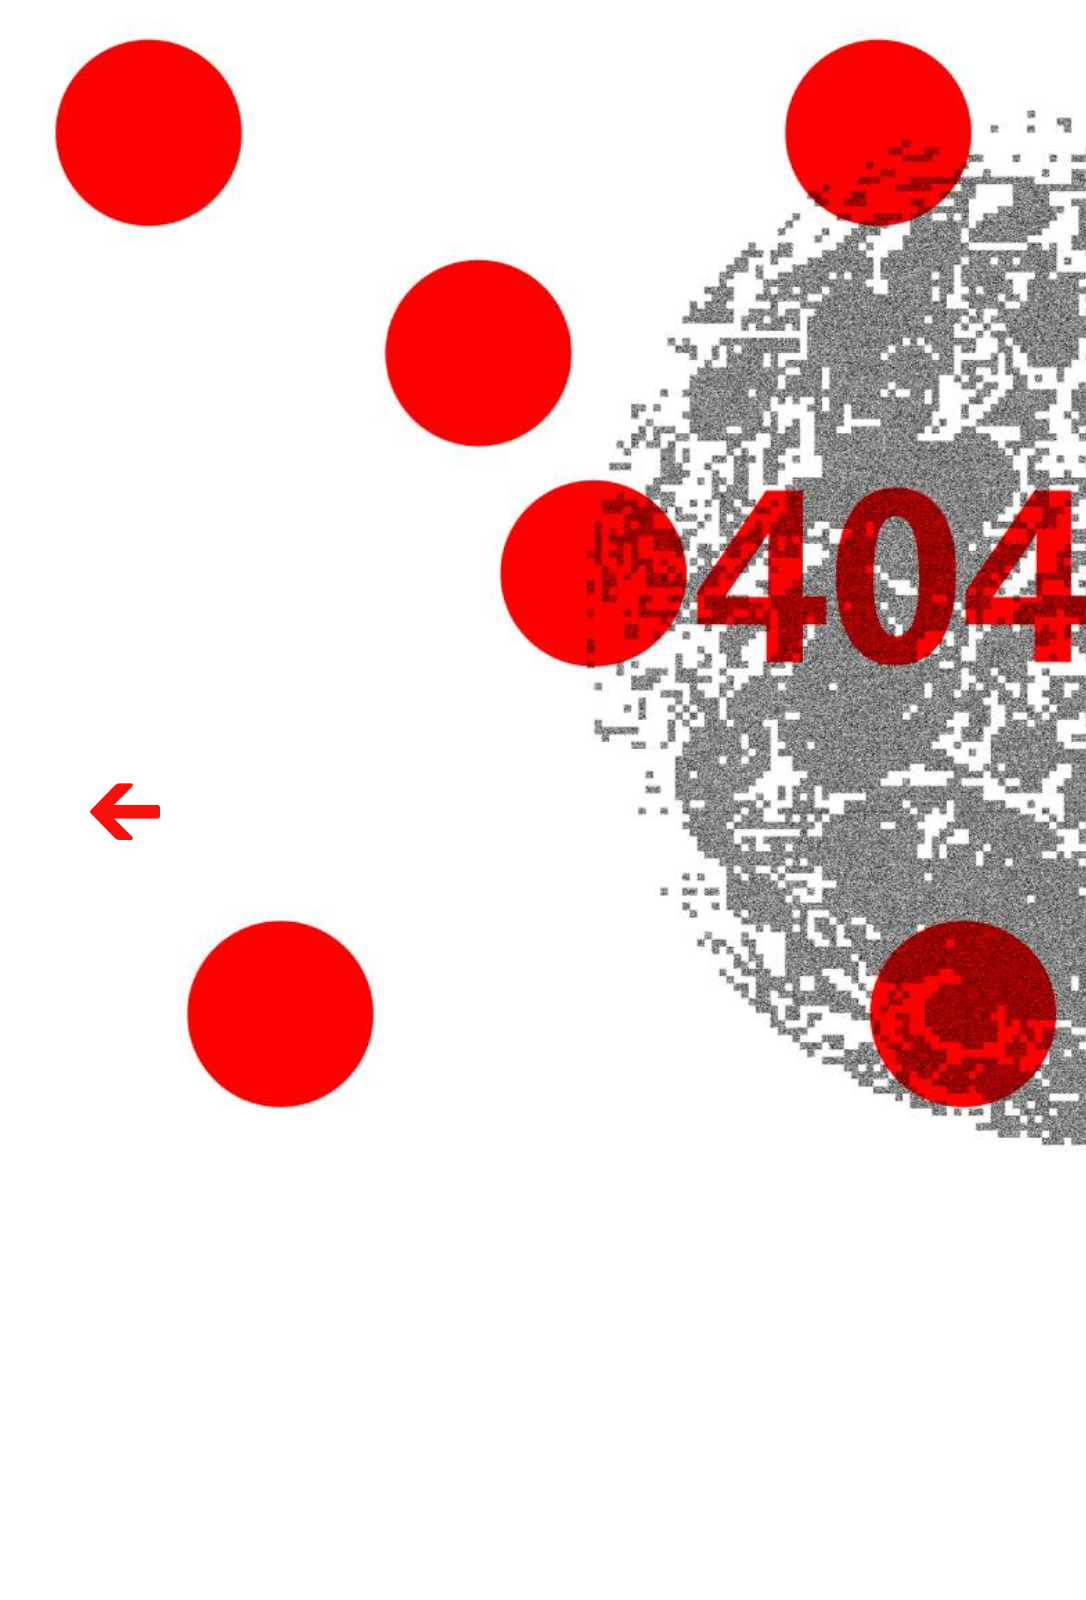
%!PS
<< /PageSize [1086 1600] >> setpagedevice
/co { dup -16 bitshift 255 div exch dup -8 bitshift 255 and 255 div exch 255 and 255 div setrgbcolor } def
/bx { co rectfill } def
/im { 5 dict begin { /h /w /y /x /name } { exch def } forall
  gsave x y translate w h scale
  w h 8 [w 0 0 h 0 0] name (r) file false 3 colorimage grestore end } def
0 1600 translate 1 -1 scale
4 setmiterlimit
0 0 1086 1600 16#FFFFFF bx
(media/1.raw) 43 21 1043 1131 im
(media/2.raw) 90 783 70 57 im
showpage
